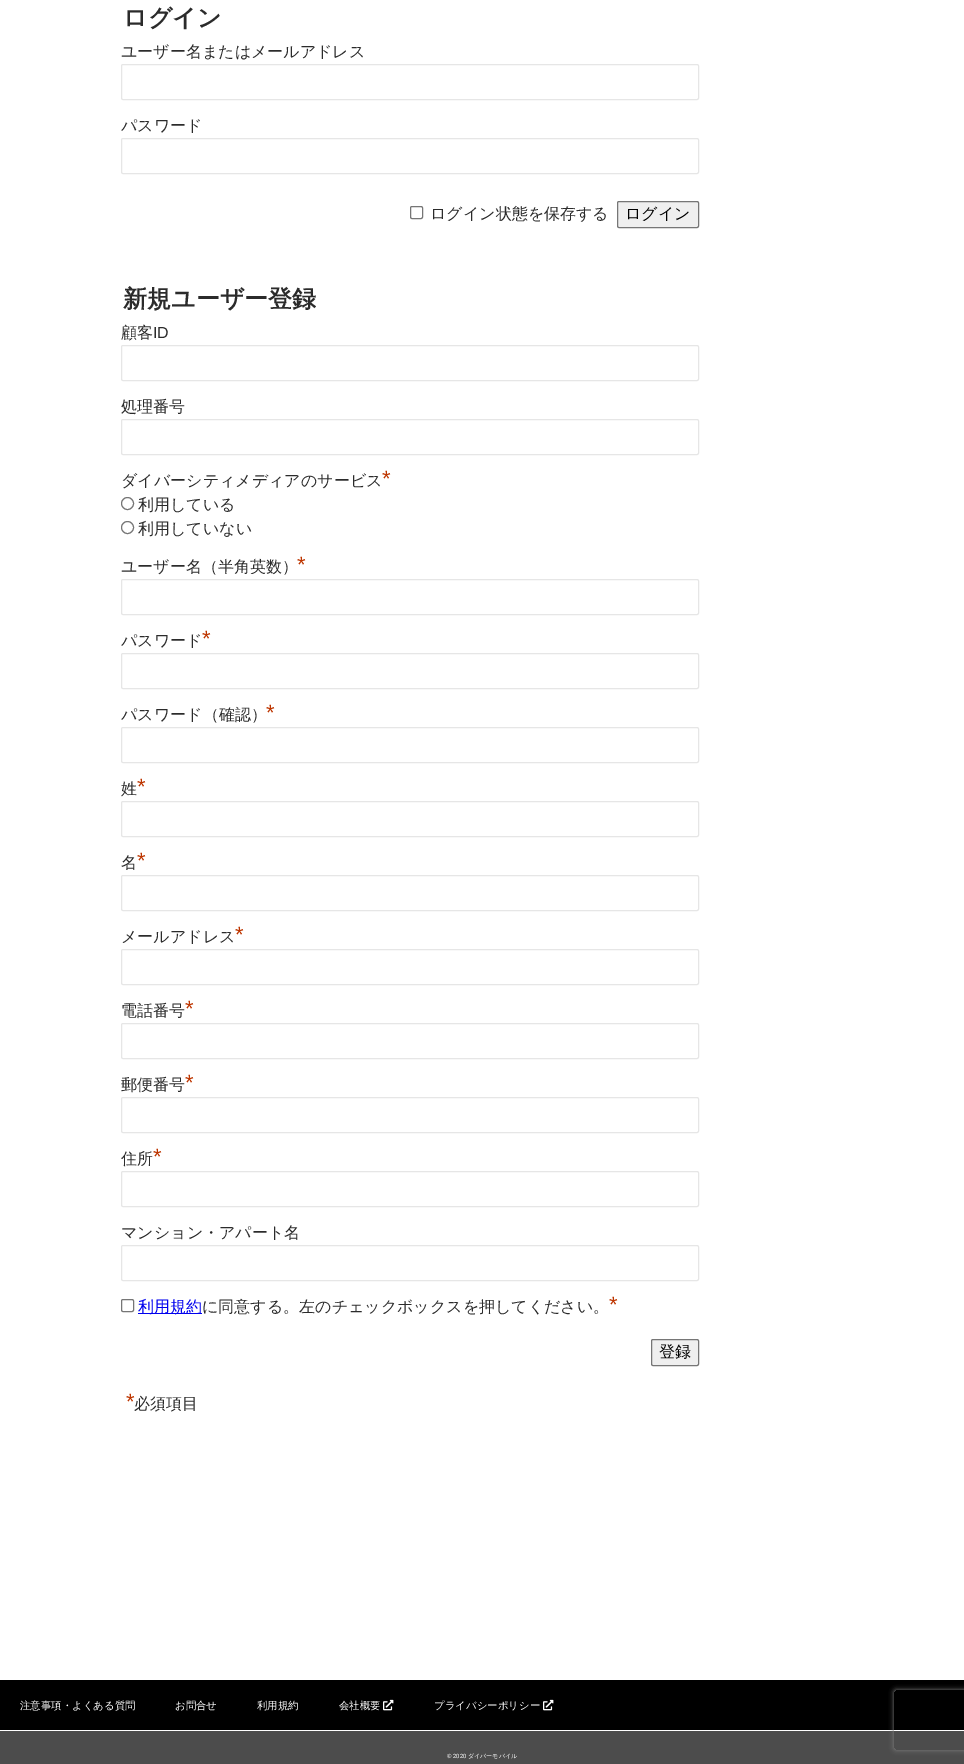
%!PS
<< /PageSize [964 1764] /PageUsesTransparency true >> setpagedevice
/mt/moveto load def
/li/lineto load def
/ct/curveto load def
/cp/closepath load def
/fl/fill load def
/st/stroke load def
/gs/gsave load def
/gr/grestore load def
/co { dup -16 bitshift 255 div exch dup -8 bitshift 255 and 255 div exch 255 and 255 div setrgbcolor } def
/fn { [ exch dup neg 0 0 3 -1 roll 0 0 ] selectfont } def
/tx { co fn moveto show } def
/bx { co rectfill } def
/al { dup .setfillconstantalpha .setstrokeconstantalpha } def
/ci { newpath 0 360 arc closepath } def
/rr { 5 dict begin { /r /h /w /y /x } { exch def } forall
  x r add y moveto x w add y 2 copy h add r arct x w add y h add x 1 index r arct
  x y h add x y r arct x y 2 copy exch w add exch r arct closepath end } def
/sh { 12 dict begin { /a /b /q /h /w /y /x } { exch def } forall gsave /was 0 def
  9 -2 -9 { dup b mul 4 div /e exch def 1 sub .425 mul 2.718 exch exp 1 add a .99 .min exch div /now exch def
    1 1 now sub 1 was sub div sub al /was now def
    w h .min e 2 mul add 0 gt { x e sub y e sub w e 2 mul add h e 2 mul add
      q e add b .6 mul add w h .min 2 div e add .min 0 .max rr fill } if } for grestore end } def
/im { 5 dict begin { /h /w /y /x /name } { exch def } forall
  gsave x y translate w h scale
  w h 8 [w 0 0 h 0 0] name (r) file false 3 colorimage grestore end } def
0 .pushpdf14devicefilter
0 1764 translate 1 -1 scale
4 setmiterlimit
0 0 964 1764 16#FFFFFF bx
16#E6E6E6 co
121.5 64.5 577 35 1.5 rr st
121.5 138.5 577 35 1.5 rr st
16#767676 co
410.5 206.5 12 12 1.5 rr st
16#EFEFEF co
617.5 201.5 81 26 1.5 rr gs fl gr
16#767676 co
st
16#E6E6E6 co
121.5 345.5 577 35 1.5 rr st
121.5 419.5 577 35 1.5 rr st
16#767676 co
127.5 503.5 6 ci st
127.5 527.5 6 ci st
16#E6E6E6 co
121.5 579.5 577 35 1.5 rr st
121.5 653.5 577 35 1.5 rr st
121.5 727.5 577 35 1.5 rr st
121.5 801.5 577 35 1.5 rr st
121.5 875.5 577 35 1.5 rr st
121.5 949.5 577 35 1.5 rr st
121.5 1023.5 577 35 1.5 rr st
121.5 1097.5 577 35 1.5 rr st
121.5 1171.5 577 35 1.5 rr st
121.5 1245.5 577 35 1.5 rr st
16#767676 co
121.5 1299.5 12 12 1.5 rr st
138 1313 64 1 16#0000EE bx
16#EFEFEF co
651.5 1339.5 47 26 1.5 rr gs fl gr
16#767676 co
st
0 1680 964 50 16#000000 bx
(media/1.raw) 383 1699 11 12 im
(media/1.raw) 543 1699 11 12 im
0 1731 964 33 16#4C4C4C bx
gs
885 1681 mt 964 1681 li 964 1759 li 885 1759 li cp 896 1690 mt 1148 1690 li 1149 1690 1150 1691 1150 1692 ct 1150 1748 li 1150 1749 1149 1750 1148 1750 ct 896 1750 li 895 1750 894 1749 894 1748 ct 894 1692 li 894 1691 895 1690 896 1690 ct cp eoclip newpath
16#808080 co
894 1690 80 60 2 2.5 1 sh
gr
(ログイン) 123 26 /WenQuanYiZenHei-Bold 24 16#2B2B2B tx
(ユーザー名またはメールアドレス) 121 57 /WenQuanYiZenHei-Medium 16 16#2B2B2B tx
(パスワード) 121 131 /WenQuanYiZenHei-Medium 16 16#2B2B2B tx
(ログイン状態を保存する) 430 219 /WenQuanYiZenHei-Medium 16 16#2B2B2B tx
(ログイン) 625 219 /WenQuanYiZenHei-Medium 16 16#000000 tx
(新規ユーザー登録) 123 307 /WenQuanYiZenHei-Bold 24 16#2B2B2B tx
(顧客) 121 338 /WenQuanYiZenHei-Medium 16 16#2B2B2B tx
(ID) 153 338 /LiberationSans-Regular 16 16#2B2B2B tx
(処理番号) 121 412 /WenQuanYiZenHei-Medium 16 16#2B2B2B tx
(ダイバーシティメディアのサービス) 121 486 /WenQuanYiZenHei-Medium 16 16#2B2B2B tx
(*) 382 486 /LiberationSans-Regular 22 16#BD3500 tx
(利用している) 138 510 /WenQuanYiZenHei-Medium 16 16#2B2B2B tx
(利用していない) 138 534 /WenQuanYiZenHei-Medium 16 16#2B2B2B tx
(ユーザー名（半角英数）) 121 572 /WenQuanYiZenHei-Medium 16 16#2B2B2B tx
(*) 297 572 /LiberationSans-Regular 22 16#BD3500 tx
(パスワード) 121 646 /WenQuanYiZenHei-Medium 16 16#2B2B2B tx
(*) 202 646 /LiberationSans-Regular 22 16#BD3500 tx
(パスワード（確認）) 121 720 /WenQuanYiZenHei-Medium 16 16#2B2B2B tx
(*) 266 720 /LiberationSans-Regular 22 16#BD3500 tx
(姓) 121 794 /WenQuanYiZenHei-Medium 16 16#2B2B2B tx
(*) 137 794 /LiberationSans-Regular 22 16#BD3500 tx
(名) 121 868 /WenQuanYiZenHei-Medium 16 16#2B2B2B tx
(*) 137 868 /LiberationSans-Regular 22 16#BD3500 tx
(メールアドレス) 121 942 /WenQuanYiZenHei-Medium 16 16#2B2B2B tx
(*) 235 942 /LiberationSans-Regular 22 16#BD3500 tx
(電話番号) 121 1016 /WenQuanYiZenHei-Medium 16 16#2B2B2B tx
(*) 185 1016 /LiberationSans-Regular 22 16#BD3500 tx
(郵便番号) 121 1090 /WenQuanYiZenHei-Medium 16 16#2B2B2B tx
(*) 185 1090 /LiberationSans-Regular 22 16#BD3500 tx
(住所) 121 1164 /WenQuanYiZenHei-Medium 16 16#2B2B2B tx
(*) 153 1164 /LiberationSans-Regular 22 16#BD3500 tx
(マンション・アパート名) 121 1238 /WenQuanYiZenHei-Medium 16 16#2B2B2B tx
(利用規約) 138 1312 /WenQuanYiZenHei-Medium 16 16#0000EE tx
(に同意する。左のチェックボックスを押してください。) 202 1312 /WenQuanYiZenHei-Medium 16 16#2B2B2B tx
(*) 609 1312 /LiberationSans-Regular 22 16#BD3500 tx
(登録) 659 1357 /WenQuanYiZenHei-Medium 16 16#000000 tx
(*) 126 1409 /LiberationSans-Regular 22 16#BD3500 tx
(必須項目) 134 1409 /WenQuanYiZenHei-Medium 16 16#2B2B2B tx
(注意事項・よくある質問) 20 1709 /WenQuanYiZenHei-Medium 10.4 16#FFFFFF tx
(お問合せ) 175 1709 /WenQuanYiZenHei-Medium 10.4 16#FFFFFF tx
(利用規約) 257 1709 /WenQuanYiZenHei-Medium 10.4 16#FFFFFF tx
(会社概要) 339 1709 /WenQuanYiZenHei-Medium 10.4 16#FFFFFF tx
(プライバシーポリシー) 434 1709 /WenQuanYiZenHei-Medium 10.4 16#FFFFFF tx
(© 2020) 447 1758 /LiberationSans-Regular 6 16#FFFFFF tx
(ダイバーモバイル) 468 1758 /WenQuanYiZenHei-Medium 6 16#FFFFFF tx
.poppdf14devicefilter showpage
